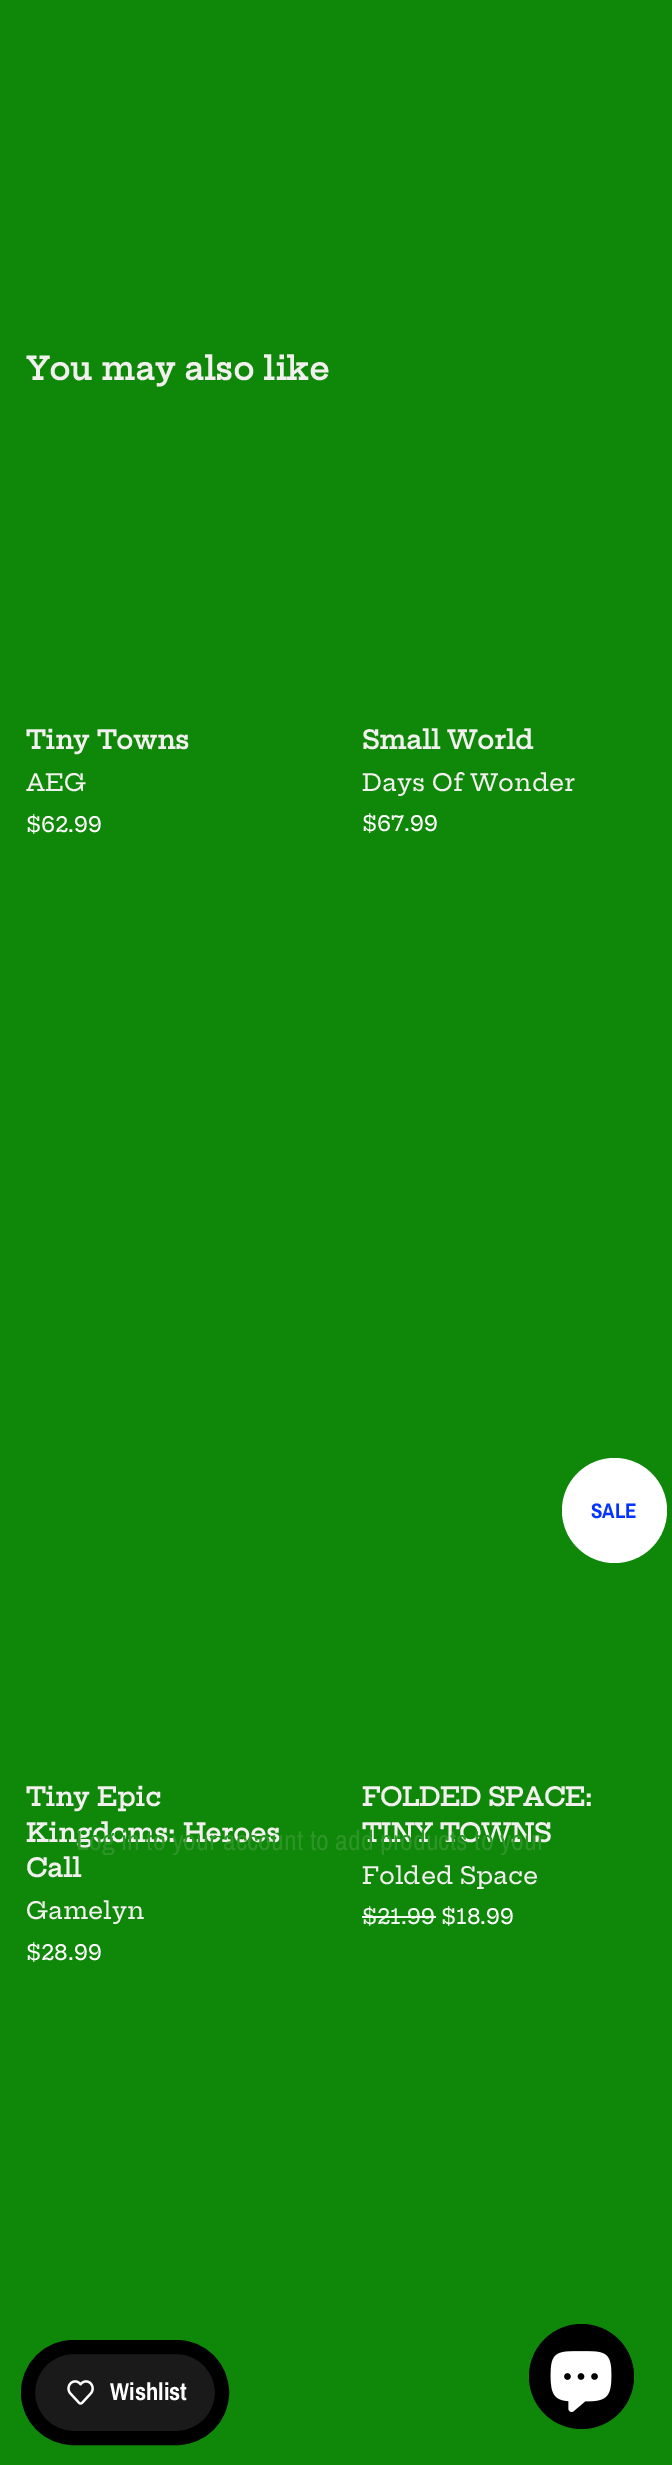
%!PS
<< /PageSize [672 2465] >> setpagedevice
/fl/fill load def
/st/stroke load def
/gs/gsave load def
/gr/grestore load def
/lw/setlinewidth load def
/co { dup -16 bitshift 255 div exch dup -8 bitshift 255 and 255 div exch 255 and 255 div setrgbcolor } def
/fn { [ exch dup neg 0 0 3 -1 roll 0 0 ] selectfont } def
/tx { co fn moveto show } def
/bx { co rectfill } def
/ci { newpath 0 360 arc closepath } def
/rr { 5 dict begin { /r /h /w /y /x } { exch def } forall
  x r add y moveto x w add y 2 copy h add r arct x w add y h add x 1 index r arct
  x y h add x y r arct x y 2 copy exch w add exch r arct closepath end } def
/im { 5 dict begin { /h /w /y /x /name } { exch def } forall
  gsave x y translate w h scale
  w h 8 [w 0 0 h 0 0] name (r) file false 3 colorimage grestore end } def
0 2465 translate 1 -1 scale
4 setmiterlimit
0 0 672 2465 16#0F8709 bx
16#FFFFFF co
614.5 1510.5 52.5 ci fl
362 1916 74 2 16#F3F9F3 bx
16#1A1A1A co
28 2347 194 91 45.5 rr gs fl gr
16#000000 co
14 lw
st
(media/1.raw) 67 2380 27 25 im
581.5 2376.5 52.5 ci fl
(media/2.raw) 550 2351 62 61 im
(You may also like) 26 380 /HeptaSlab-Bold 31.5 16#F2F0EE tx
(Tiny Towns) 26 749 /HeptaSlab-Bold 25.25 16#F2F0EE tx
(AEG) 26 791 /HeptaSlab-Medium 23.75 16#F2F0EE tx
($62.99) 26 832 /HeptaSlab-Medium 21 16#FFFFFF tx
(Small World) 362 749 /HeptaSlab-Bold 25.25 16#F2F0EE tx
(Days Of Wonder) 362 791 /HeptaSlab-Medium 23.75 16#F2F0EE tx
($67.99) 362 831 /HeptaSlab-Medium 21 16#FFFFFF tx
(Tiny Epic) 26 1806 /HeptaSlab-Bold 25.25 16#F2F0EE tx
(Kingdoms: Heroes) 26 1842 /HeptaSlab-Bold 25.25 16#F2F0EE tx
(Call) 26 1877 /HeptaSlab-Bold 25.25 16#F2F0EE tx
(Gamelyn) 26 1919 /HeptaSlab-Medium 23.75 16#F2F0EE tx
($28.99) 26 1960 /HeptaSlab-Medium 21 16#FFFFFF tx
(SALE) 591 1518 /ArchivoNarrow-Bold 21 16#0334FF tx
(FOLDED SPACE:) 362 1806 /HeptaSlab-Bold 25.25 16#F2F0EE tx
(TINY TOWNS) 362 1842 /HeptaSlab-Bold 25.25 16#F2F0EE tx
(Folded Space) 362 1884 /HeptaSlab-Medium 23.75 16#F2F0EE tx
($21.99) 362 1924 /HeptaSlab-Medium 21 16#F3F9F3 tx
($18.99) 441 1924 /HeptaSlab-Medium 21 16#FFFFFF tx
(Log in to your account to add products to your) 76 1850 /ArchivoNarrow-Regular 28 16#2D9528 tx
(Wishlist) 110 2400 /ArchivoNarrow-Bold 24.5 16#FFFFFF tx
showpage
